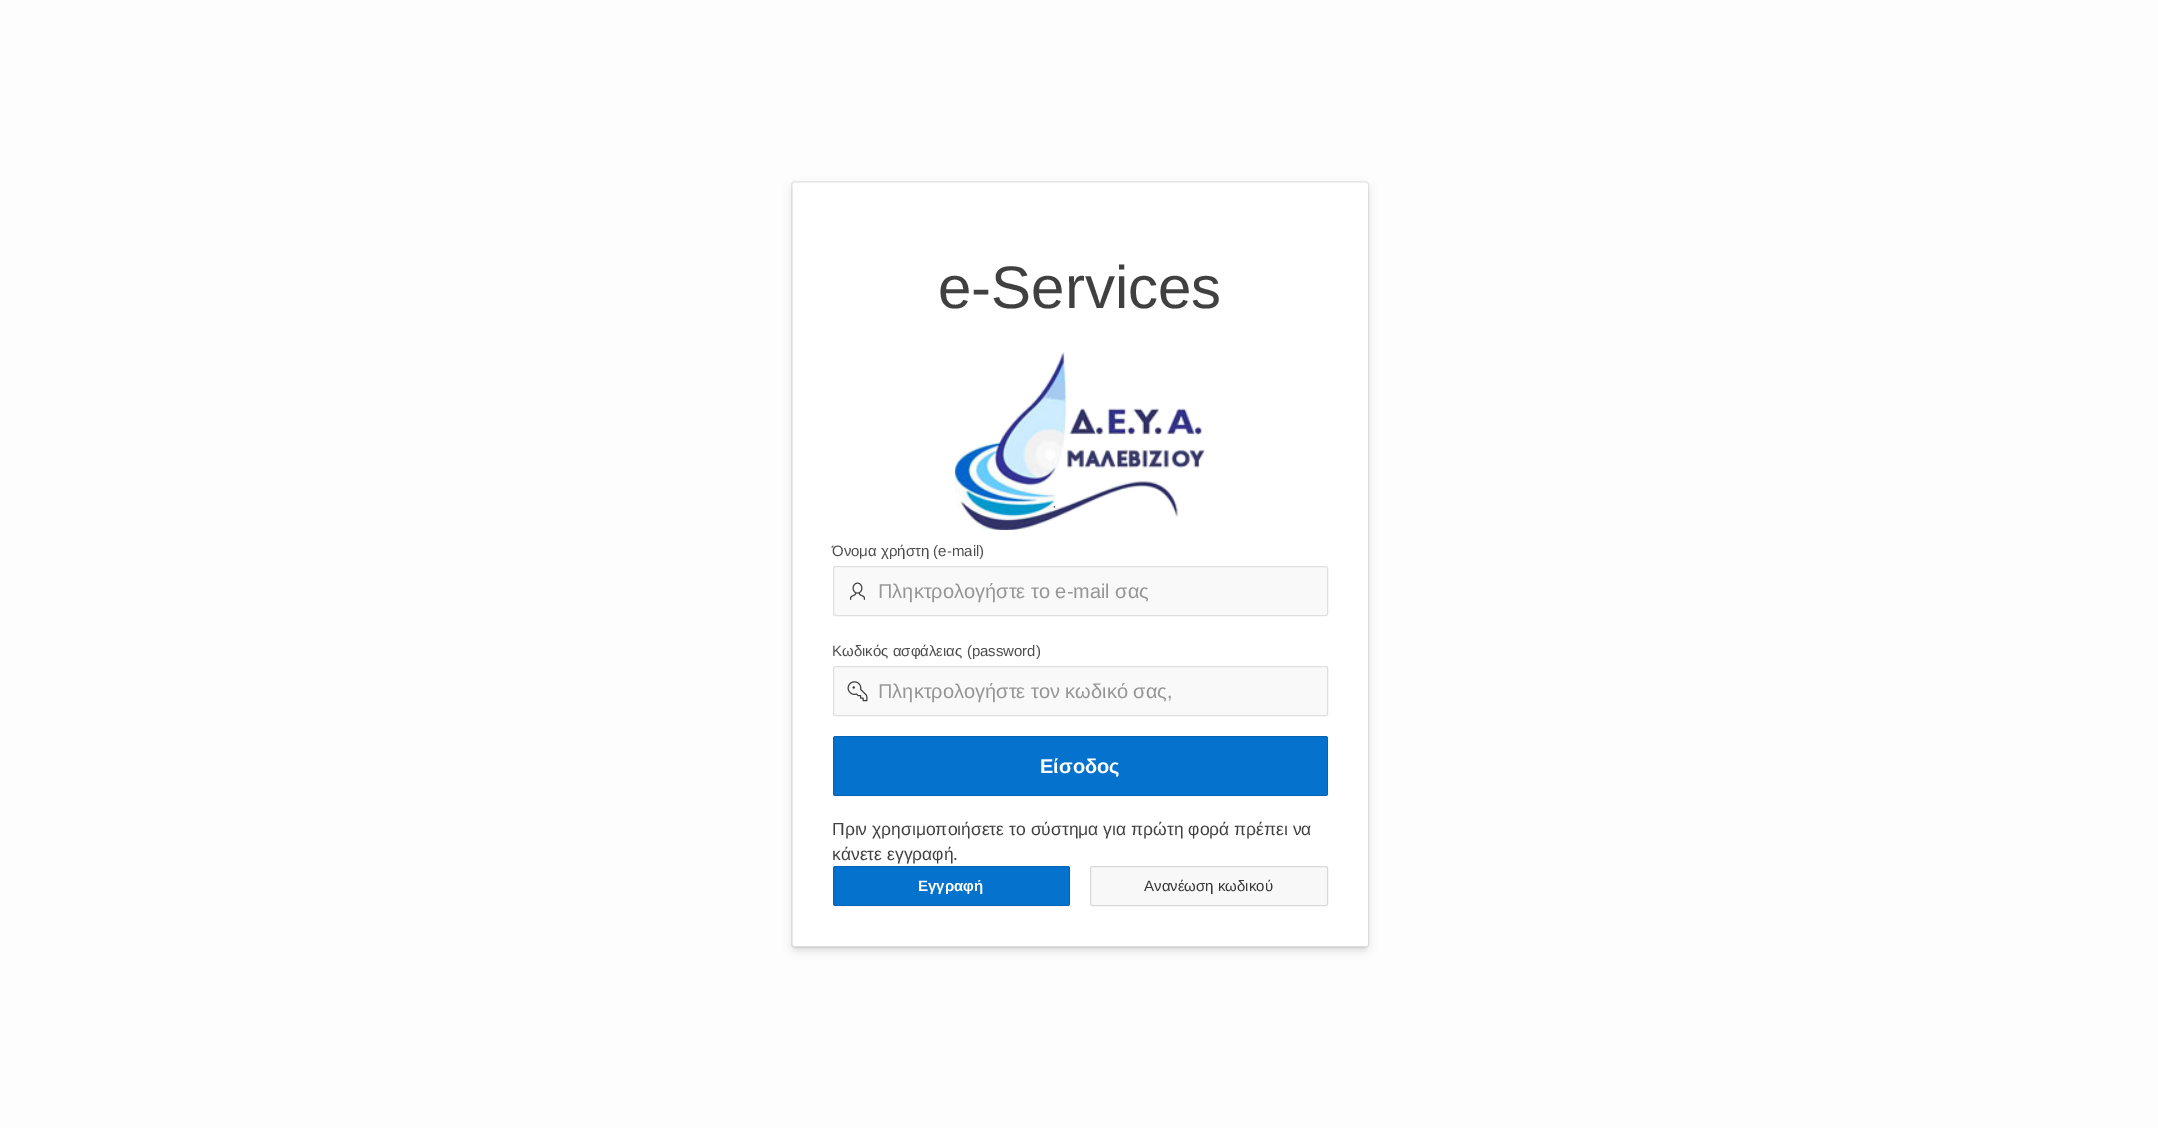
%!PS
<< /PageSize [2158 1128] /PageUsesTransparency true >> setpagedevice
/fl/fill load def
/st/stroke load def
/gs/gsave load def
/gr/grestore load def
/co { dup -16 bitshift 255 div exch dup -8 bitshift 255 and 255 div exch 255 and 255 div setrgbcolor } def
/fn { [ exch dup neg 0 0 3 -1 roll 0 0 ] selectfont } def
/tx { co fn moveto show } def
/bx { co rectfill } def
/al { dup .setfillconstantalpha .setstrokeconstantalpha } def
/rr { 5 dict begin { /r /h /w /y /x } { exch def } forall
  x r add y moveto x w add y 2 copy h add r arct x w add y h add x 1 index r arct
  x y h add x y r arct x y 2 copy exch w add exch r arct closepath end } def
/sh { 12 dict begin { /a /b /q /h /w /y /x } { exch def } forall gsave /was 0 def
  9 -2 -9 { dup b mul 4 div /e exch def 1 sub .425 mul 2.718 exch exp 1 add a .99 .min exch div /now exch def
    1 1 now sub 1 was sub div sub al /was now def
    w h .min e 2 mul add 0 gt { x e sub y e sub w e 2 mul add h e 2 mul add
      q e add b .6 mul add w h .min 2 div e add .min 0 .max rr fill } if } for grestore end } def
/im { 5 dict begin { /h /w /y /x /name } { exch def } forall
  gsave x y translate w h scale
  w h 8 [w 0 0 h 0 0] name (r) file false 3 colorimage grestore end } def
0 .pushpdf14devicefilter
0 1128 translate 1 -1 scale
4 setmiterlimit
0 0 2158 1128 16#FDFDFD bx
16#EAEAEA co
791.5 181.5 577 766 3.5 rr st
16#000000 co
795 189 570 759 0 5.5 .2 sh
16#FFFFFF co
793 183 575 763 2.5 rr fl
(media/1.raw) 955 352 250 178 im
16#F9F9F9 co
833.5 566.5 494 49 2 rr gs fl gr
16#DFDFDF co
st
(media/2.raw) 850 582 15 18 im
16#F9F9F9 co
833.5 666.5 494 49 2 rr gs fl gr
16#DFDFDF co
st
(media/3.raw) 847 681 21 21 im
16#0572CE co
833 736 495 60 2.5 rr fl
0.12 al
16#000000 co
833.5 736.5 494 59 2 rr st
1 al
16#0572CE co
833 866 237 40 2.5 rr fl
0.12 al
16#000000 co
833.5 866.5 236 39 2 rr st
1 al
16#F8F8F8 co
1090.5 866.5 237 39 2 rr gs fl gr
16#D9D9D9 co
st
(e-Services) 938 308 /LiberationSans-Regular 60 16#404040 tx
(Όνομα χρήστη \(e-mail\)) 832 556 /LiberationSans-Regular 15 16#4D4D4D tx
(Πληκτρολογήστε το e-mail σας) 878 598 /LiberationSans-Regular 20 16#959595 tx
(Κωδικός ασφάλειας \(password\)) 832 656 /LiberationSans-Regular 15 16#4D4D4D tx
(Πληκτρολογήστε τον κωδικό σας,) 878 698 /LiberationSans-Regular 20 16#959595 tx
(Είσοδος) 1040 773 /LiberationSans-Bold 20 16#FFFFFF tx
(Πριν χρησιμοποιήσετε το σύστημα για πρώτη φορά πρέπει να) 832 835 /LiberationSans-Regular 17.5 16#404040 tx
(κάνετε εγγραφή.) 832 860 /LiberationSans-Regular 17.5 16#404040 tx
(Εγγραφή) 918 891 /LiberationSans-Bold 15 16#FFFFFF tx
(Ανανέωση κωδικού) 1144 891 /LiberationSans-Regular 15 16#383838 tx
.poppdf14devicefilter showpage
